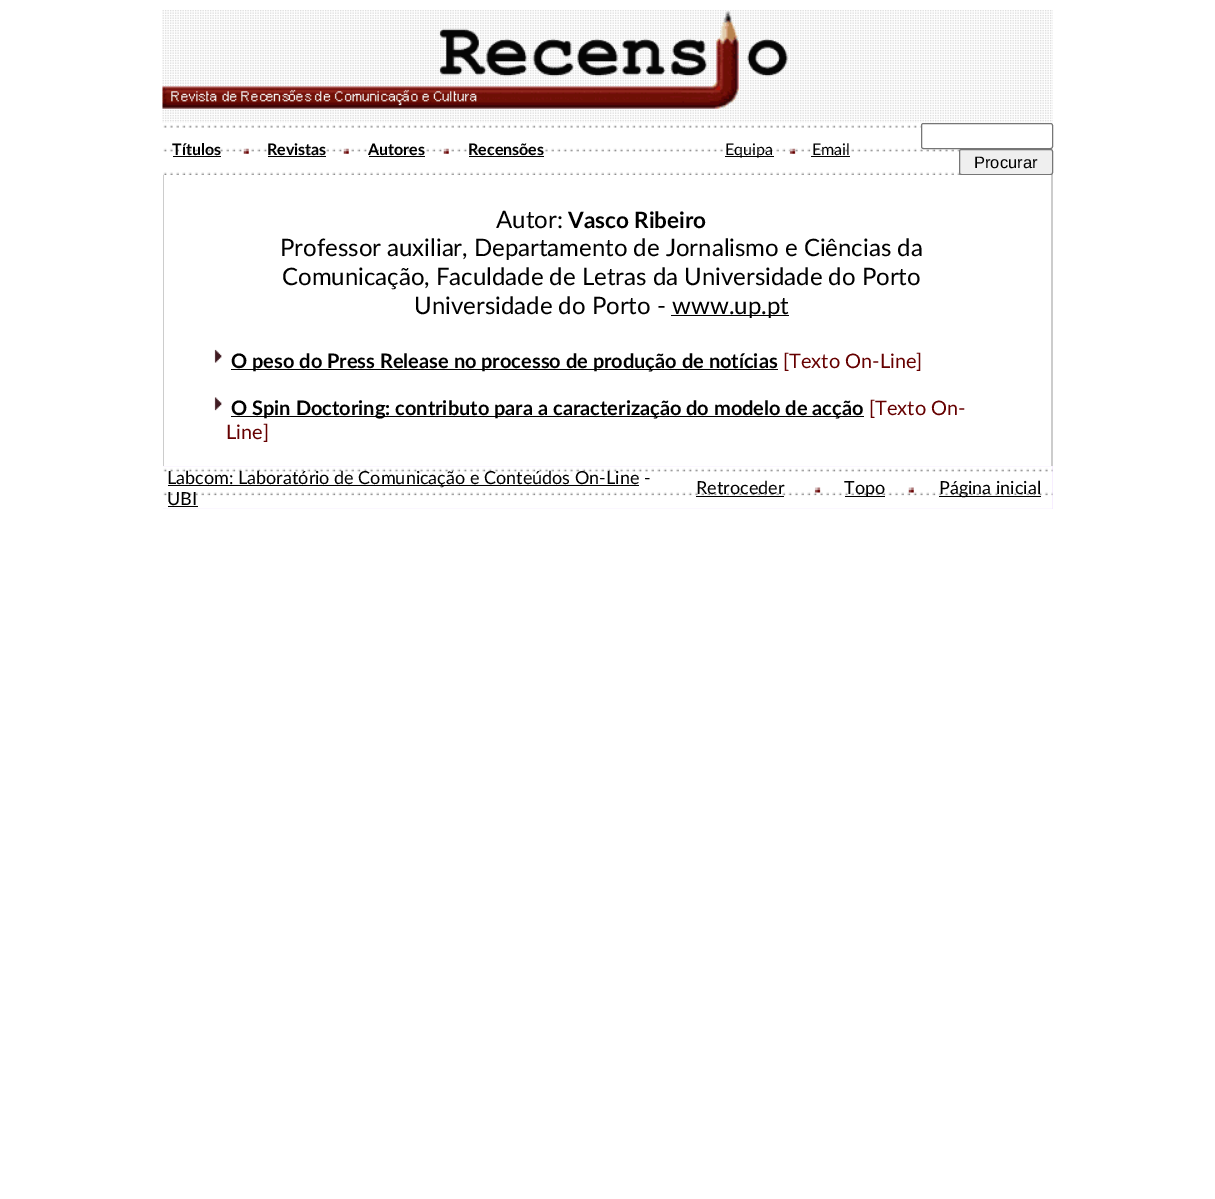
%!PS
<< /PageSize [1215 1199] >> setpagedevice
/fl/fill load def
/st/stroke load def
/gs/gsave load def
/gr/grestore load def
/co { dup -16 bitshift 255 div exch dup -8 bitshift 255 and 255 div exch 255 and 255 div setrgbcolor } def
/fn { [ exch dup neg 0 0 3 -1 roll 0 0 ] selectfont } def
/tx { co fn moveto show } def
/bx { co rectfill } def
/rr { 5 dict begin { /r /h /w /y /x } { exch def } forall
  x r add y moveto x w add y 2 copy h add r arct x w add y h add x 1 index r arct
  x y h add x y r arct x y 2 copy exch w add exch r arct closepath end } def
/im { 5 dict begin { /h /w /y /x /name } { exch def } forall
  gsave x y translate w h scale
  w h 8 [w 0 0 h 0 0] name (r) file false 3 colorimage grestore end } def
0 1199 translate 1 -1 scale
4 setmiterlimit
0 0 1215 1199 16#FFFFFF bx
(media/1.raw) 162 10 891 113 im
(media/2.raw) 162 10 891 113 im
(media/3.raw) 162 11 626 98 im
(media/4.raw) 163 122 890 53 im
173 156 48 1 16#000000 bx
(media/5.raw) 243 148 6 6 im
268 156 58 1 16#000000 bx
(media/5.raw) 343 148 6 6 im
369 156 56 1 16#000000 bx
(media/5.raw) 443 148 6 6 im
469 156 75 1 16#000000 bx
725 156 49 1 16#000000 bx
(media/6.raw) 789 148 7 6 im
811 156 39 1 16#000000 bx
16#FFFFFF co
921.5 123.5 131 25 2 rr gs fl gr
16#767676 co
st
16#EFEFEF co
959.5 149.5 93 25 2 rr gs fl gr
16#767676 co
st
163 175 890 291 16#CCCCCC bx
164 175 887 291 16#FFFFFF bx
671 315 118 1 16#000000 bx
(media/7.raw) 214 349 8 14 im
231 369 547 1 16#000000 bx
(media/8.raw) 214 397 8 14 im
231 416 633 1 16#000000 bx
163 466 890 43 16#EEDDFF bx
(media/9.raw) 163 466 890 43 im
168 485 471 1 16#000000 bx
168 506 30 1 16#000000 bx
696 496 88 1 16#000000 bx
(media/10.raw) 814 487 7 6 im
845 496 40 1 16#000000 bx
(media/11.raw) 908 487 6 6 im
939 496 102 1 16#000000 bx
(Títulos) 172 155 /Lato-Bold 16 16#000000 tx
(Revistas) 267 155 /Lato-Bold 16 16#000000 tx
(Autores) 368 155 /Lato-Bold 16 16#000000 tx
(Recensões) 468 155 /Lato-Bold 16 16#000000 tx
(Equipa) 725 155 /Lato-Regular 16 16#000000 tx
(Email) 812 155 /Lato-Regular 16 16#000000 tx
(Procurar) 974 168 /LiberationSans-Regular 16.5 16#000000 tx
(Autor:) 496 228 /Lato-Regular 24 16#000000 tx
(Vasco Ribeiro) 568 228 /Lato-Bold 22.5 16#000000 tx
(Professor auxiliar, Departamento de Jornalismo e Ciências da) 280 256 /Lato-Regular 24 16#000000 tx
(Comunicação, Faculdade de Letras da Universidade do Porto) 282 285 /Lato-Regular 24 16#000000 tx
(Universidade do Porto -) 414 314 /Lato-Regular 24 16#000000 tx
(www.up.pt) 672 314 /Lato-Regular 24 16#000000 tx
(O peso do Press Release no processo de produção de notícias) 231 368 /Lato-Bold 20 16#000000 tx
([Texto On-Line]) 783 368 /Lato-Regular 20 16#660000 tx
(O Spin Doctoring: contributo para a caracterização do modelo de acção) 231 415 /Lato-Bold 20 16#000000 tx
([Texto On-) 869 415 /Lato-Regular 20 16#660000 tx
(Line]) 226 439 /Lato-Regular 20 16#660000 tx
(Labcom: Laboratório de Comunicação e Conteúdos On-Line -) 167 484 /Lato-Regular 18 16#000000 tx
(UBI) 167 505 /Lato-Regular 18 16#000000 tx
(Retroceder) 696 494 /Lato-Regular 18 16#000000 tx
(Topo) 844 494 /Lato-Regular 18 16#000000 tx
(Página inicial) 939 494 /Lato-Regular 18 16#000000 tx
showpage
